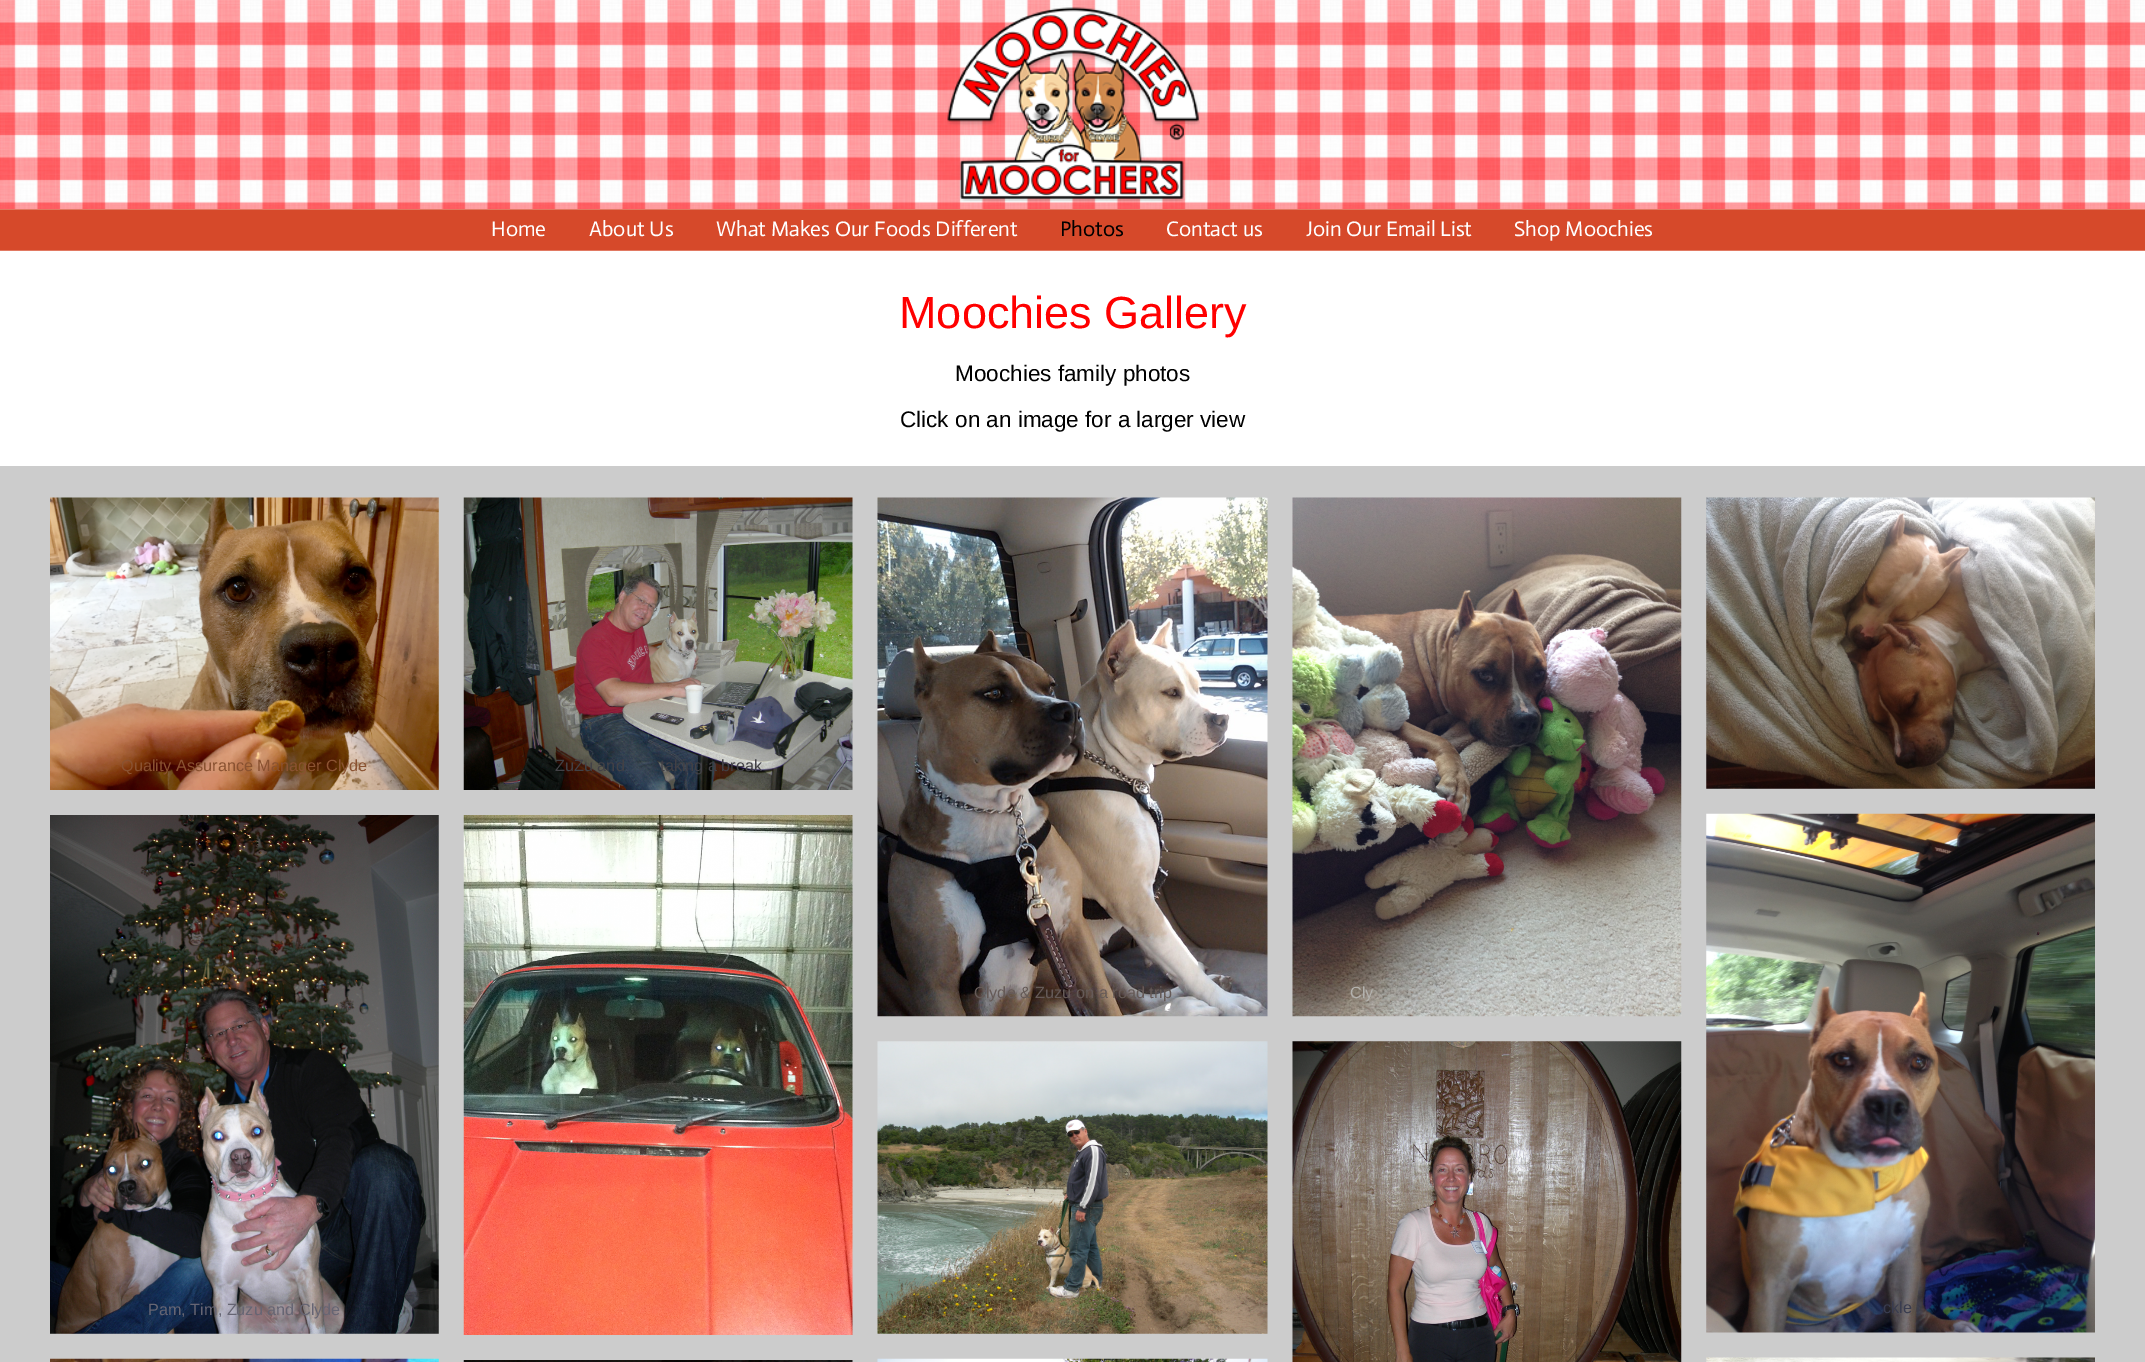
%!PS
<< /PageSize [2145 1362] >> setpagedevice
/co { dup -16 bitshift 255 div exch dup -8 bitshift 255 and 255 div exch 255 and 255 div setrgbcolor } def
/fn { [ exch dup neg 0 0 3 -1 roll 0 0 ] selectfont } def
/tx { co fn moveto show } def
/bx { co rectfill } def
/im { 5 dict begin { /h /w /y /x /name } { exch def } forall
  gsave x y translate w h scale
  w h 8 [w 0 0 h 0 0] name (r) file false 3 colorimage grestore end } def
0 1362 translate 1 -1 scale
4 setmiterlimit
0 0 2145 1362 16#FFFFFF bx
(media/1.raw) 0 0 2145 209 im
(media/2.raw) 947 7 253 195 im
0 210 2145 40 16#D6492A bx
0 209 2145 1 16#E17962 bx
0 250 2145 1 16#E17962 bx
0 466 2145 896 16#CCCCCC bx
(media/3.raw) 50 497 389 293 im
(media/4.raw) 50 815 389 519 im
(media/5.raw) 50 1358 389 4 im
(media/6.raw) 463 497 390 293 im
(media/7.raw) 463 815 390 520 im
(media/8.raw) 463 1360 390 2 im
(media/9.raw) 877 497 391 520 im
(media/10.raw) 877 1041 391 293 im
(media/11.raw) 877 1358 391 4 im
(media/12.raw) 1292 497 390 520 im
(media/13.raw) 1292 1041 390 321 im
(media/14.raw) 1706 497 389 292 im
(media/15.raw) 1706 813 389 520 im
(media/16.raw) 1706 1357 389 5 im
(Home) 491 236 /Actor-Regular 21.25 16#FFFFFF tx
(About Us) 589 236 /Actor-Regular 21.25 16#FFFFFF tx
(What Makes Our Foods Different) 716 236 /Actor-Regular 21.25 16#FFFFFF tx
(Photos) 1060 236 /Actor-Regular 21.25 16#000000 tx
(Contact us) 1166 236 /Actor-Regular 21.25 16#FFFFFF tx
(Join Our Email List) 1306 236 /Actor-Regular 21.25 16#FFFFFF tx
(Shop Moochies) 1514 236 /Actor-Regular 21.25 16#FFFFFF tx
(Moochies Gallery) 899 328 /LiberationSans-Regular 45 16#FF0000 tx
(Moochies family photos) 955 381 /LiberationSans-Regular 22.5 16#000000 tx
(Click on an image for a larger view) 900 427 /LiberationSans-Regular 22.5 16#000000 tx
(Quality Assurance Manager Clyde) 121 771 /LiberationSans-Regular 16.25 16#8A5231 tx
(Pam, Tim, Zuzu and Clyde) 148 1315 /LiberationSans-Regular 16.25 16#666573 tx
(ZuZu and) 555 771 /LiberationSans-Regular 16.25 16#424146 tx
(taking a break) 660 771 /LiberationSans-Regular 16.25 16#424146 tx
(Clyde & Zuzu on a road trip) 974 998 /LiberationSans-Regular 16.25 16#655A57 tx
(Cly) 1350 998 /LiberationSans-Regular 16.25 16#B3B2AE tx
(ckle) 1883 1313 /LiberationSans-Regular 16.25 16#393C4F tx
showpage
